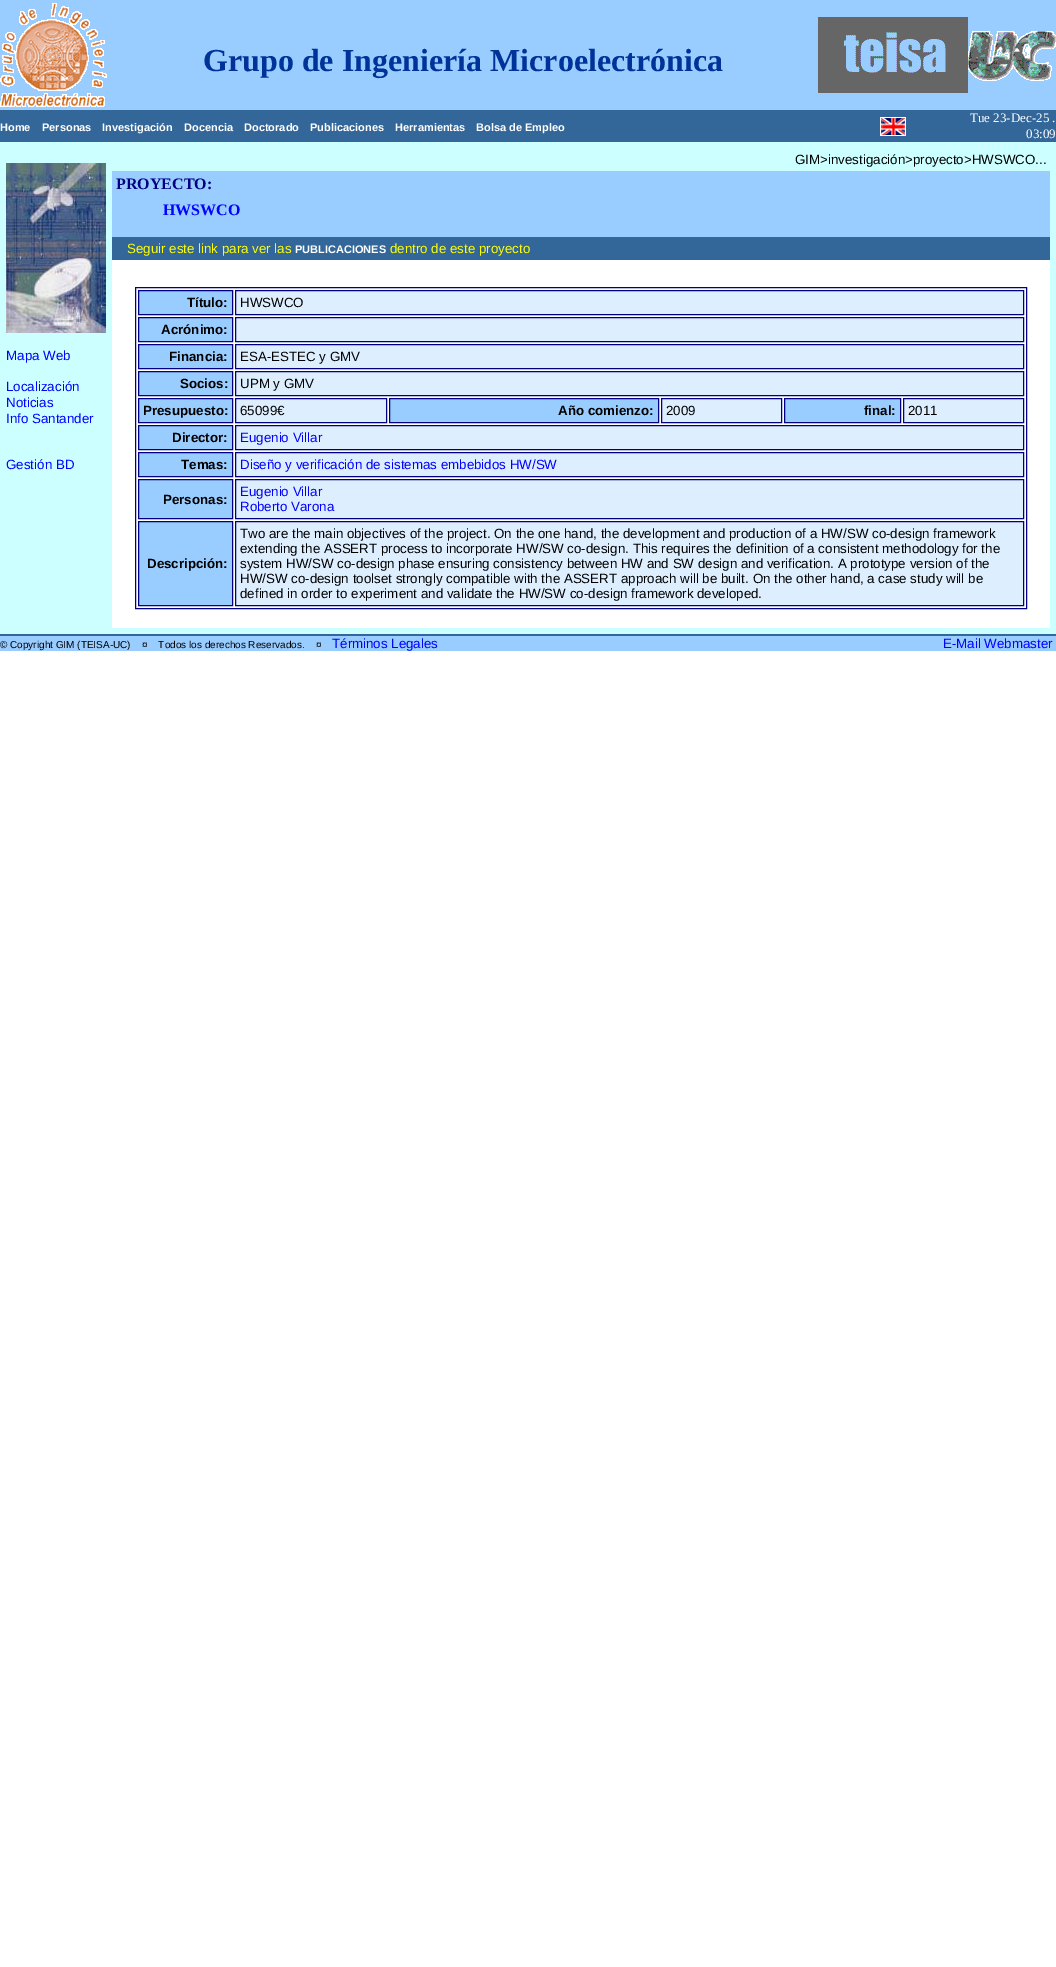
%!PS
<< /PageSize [1056 1967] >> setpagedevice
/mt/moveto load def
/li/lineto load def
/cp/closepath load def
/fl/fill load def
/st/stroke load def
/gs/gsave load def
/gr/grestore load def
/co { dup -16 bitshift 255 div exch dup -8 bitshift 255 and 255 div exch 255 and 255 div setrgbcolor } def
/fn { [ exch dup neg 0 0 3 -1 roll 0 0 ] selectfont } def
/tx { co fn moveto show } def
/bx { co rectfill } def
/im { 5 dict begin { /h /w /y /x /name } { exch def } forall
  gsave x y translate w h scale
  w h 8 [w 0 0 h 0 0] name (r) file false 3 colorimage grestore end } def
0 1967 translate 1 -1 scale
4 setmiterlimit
0 0 1056 1967 16#FFFFFF bx
0 0 1056 110 16#99CCFF bx
(media/1.raw) 0 3 107 104 im
(media/2.raw) 818 17 150 76 im
(media/3.raw) 968 31 88 50 im
0 110 1056 32 16#336699 bx
(media/4.raw) 880 117 26 19 im
0 142 1056 492 16#CCFFFF bx
(media/5.raw) 6 163 100 170 im
112 260 938 368 16#FFFFFF bx
112 171 938 66 16#99CCFF bx
112 237 938 23 16#336699 bx
16#000080 co
135.5 287.5 891 321 rectstroke
16#99CCFF co
138.5 290.5 mt 232.5 290.5 li 232.5 314.5 li 138.5 314.5 li cp gs fl gr
16#000080 co
st
16#DDEEFF co
235.5 290.5 mt 1023.5 290.5 li 1023.5 314.5 li 235.5 314.5 li cp gs fl gr
16#000080 co
st
16#99CCFF co
138.5 317.5 mt 232.5 317.5 li 232.5 341.5 li 138.5 341.5 li cp gs fl gr
16#000080 co
st
16#DDEEFF co
235.5 317.5 mt 1023.5 317.5 li 1023.5 341.5 li 235.5 341.5 li cp gs fl gr
16#000080 co
st
16#99CCFF co
138.5 344.5 mt 232.5 344.5 li 232.5 368.5 li 138.5 368.5 li cp gs fl gr
16#000080 co
st
16#DDEEFF co
235.5 344.5 mt 1023.5 344.5 li 1023.5 368.5 li 235.5 368.5 li cp gs fl gr
16#000080 co
st
16#99CCFF co
138.5 371.5 mt 232.5 371.5 li 232.5 395.5 li 138.5 395.5 li cp gs fl gr
16#000080 co
st
16#DDEEFF co
235.5 371.5 mt 1023.5 371.5 li 1023.5 395.5 li 235.5 395.5 li cp gs fl gr
16#000080 co
st
16#99CCFF co
138.5 398.5 mt 232.5 398.5 li 232.5 422.5 li 138.5 422.5 li cp gs fl gr
16#000080 co
st
16#DDEEFF co
235.5 398.5 mt 386.5 398.5 li 386.5 422.5 li 235.5 422.5 li cp gs fl gr
16#000080 co
st
16#99CCFF co
389.5 398.5 mt 658.5 398.5 li 658.5 422.5 li 389.5 422.5 li cp gs fl gr
16#000080 co
st
16#DDEEFF co
661.5 398.5 mt 781.5 398.5 li 781.5 422.5 li 661.5 422.5 li cp gs fl gr
16#000080 co
st
16#99CCFF co
784.5 398.5 mt 900.5 398.5 li 900.5 422.5 li 784.5 422.5 li cp gs fl gr
16#000080 co
st
16#DDEEFF co
903.5 398.5 mt 1023.5 398.5 li 1023.5 422.5 li 903.5 422.5 li cp gs fl gr
16#000080 co
st
16#99CCFF co
138.5 425.5 mt 232.5 425.5 li 232.5 449.5 li 138.5 449.5 li cp gs fl gr
16#000080 co
st
16#DDEEFF co
235.5 425.5 mt 1023.5 425.5 li 1023.5 449.5 li 235.5 449.5 li cp gs fl gr
16#000080 co
st
16#99CCFF co
138.5 452.5 mt 232.5 452.5 li 232.5 476.5 li 138.5 476.5 li cp gs fl gr
16#000080 co
st
16#DDEEFF co
235.5 452.5 mt 1023.5 452.5 li 1023.5 476.5 li 235.5 476.5 li cp gs fl gr
16#000080 co
st
16#99CCFF co
138.5 479.5 mt 232.5 479.5 li 232.5 518.5 li 138.5 518.5 li cp gs fl gr
16#000080 co
st
16#DDEEFF co
235.5 479.5 mt 1023.5 479.5 li 1023.5 518.5 li 235.5 518.5 li cp gs fl gr
16#000080 co
st
16#99CCFF co
138.5 521.5 mt 232.5 521.5 li 232.5 605.5 li 138.5 605.5 li cp gs fl gr
16#000080 co
st
16#DDEEFF co
235.5 521.5 mt 1023.5 521.5 li 1023.5 605.5 li 235.5 605.5 li cp gs fl gr
16#000080 co
st
0 634 1056 2 16#336699 bx
0 636 1056 15 16#99CCFF bx
(Grupo de Ingeniería Microelectrónica) 203 71 /LiberationSerif-Bold 32 16#003399 tx
(Home) 0 131 /LiberationSans-Bold 11 16#FFFFFF tx
(Personas) 42 131 /LiberationSans-Bold 11 16#FFFFFF tx
(Investigación) 102 131 /LiberationSans-Bold 11 16#FFFFFF tx
(Docencia) 184 131 /LiberationSans-Bold 11 16#FFFFFF tx
(Doctorado) 244 131 /LiberationSans-Bold 11 16#FFFFFF tx
(Publicaciones) 310 131 /LiberationSans-Bold 11 16#FFFFFF tx
(Herramientas) 395 131 /LiberationSans-Bold 11 16#FFFFFF tx
(Bolsa de Empleo) 476 131 /LiberationSans-Bold 11 16#FFFFFF tx
(Tue 23-Dec-25 .) 970 122 /LiberationSerif-Regular 13 16#FFFFFF tx
(03:09) 1026 138 /LiberationSerif-Regular 13 16#FFFFFF tx
(Mapa Web) 6 360 /LiberationSans-Regular 13.33 16#0000FF tx
(Localización) 6 391 /LiberationSans-Regular 13.33 16#0000FF tx
(Noticias) 6 407 /LiberationSans-Regular 13.33 16#0000FF tx
(Info Santander) 6 423 /LiberationSans-Regular 13.33 16#0000FF tx
(Gestión BD) 6 469 /LiberationSans-Regular 13.33 16#0000FF tx
(GIM>investigación>proyecto>HWSWCO...) 795 164 /LiberationSans-Regular 13.33 16#000000 tx
(PROYECTO:) 116 189 /LiberationSerif-Bold 16 16#000080 tx
(HWSWCO) 163 215 /LiberationSerif-Bold 16 16#0000FF tx
(Seguir este link para ver las) 127 253 /LiberationSans-Regular 13.33 16#FFFF00 tx
(PUBLICACIONES) 295 253 /LiberationSans-Bold 11 16#FFFFFF tx
(dentro de este proyecto) 390 253 /LiberationSans-Regular 13.33 16#FFFF00 tx
(Título:) 187 307 /LiberationSans-Bold 13.33 16#000000 tx
(HWSWCO) 240 307 /LiberationSans-Regular 13.33 16#000000 tx
(Acrónimo:) 161 334 /LiberationSans-Bold 13.33 16#000000 tx
(Financia:) 169 361 /LiberationSans-Bold 13.33 16#000000 tx
(ESA-ESTEC y GMV) 240 361 /LiberationSans-Regular 13.33 16#000000 tx
(Socios:) 180 388 /LiberationSans-Bold 13.33 16#000000 tx
(UPM y GMV) 240 388 /LiberationSans-Regular 13.33 16#000000 tx
(Presupuesto:) 143 415 /LiberationSans-Bold 13.33 16#000000 tx
(65099€) 240 415 /LiberationSans-Regular 13.33 16#000000 tx
(Año comienzo:) 558 415 /LiberationSans-Bold 13.33 16#000000 tx
(2009) 666 415 /LiberationSans-Regular 13.33 16#000000 tx
(final:) 864 415 /LiberationSans-Bold 13.33 16#000000 tx
(2011) 908 415 /LiberationSans-Regular 13.33 16#000000 tx
(Director:) 172 442 /LiberationSans-Bold 13.33 16#000000 tx
(Eugenio Villar) 240 442 /LiberationSans-Regular 13.33 16#0000FF tx
(Temas:) 181 469 /LiberationSans-Bold 13.33 16#000000 tx
(Diseño y verificación de sistemas embebidos HW/SW) 240 469 /LiberationSans-Regular 13.33 16#0000FF tx
(Personas:) 163 504 /LiberationSans-Bold 13.33 16#000000 tx
(Eugenio Villar) 240 496 /LiberationSans-Regular 13.33 16#0000FF tx
(Roberto Varona) 240 511 /LiberationSans-Regular 13.33 16#0000FF tx
(Descripción:) 147 568 /LiberationSans-Bold 13.33 16#000000 tx
(Two are the main objectives of the project. On the one hand, the development and production of a HW/SW co-design framework) 240 538 /LiberationSans-Regular 13.33 16#000000 tx
(extending the ASSERT process to incorporate HW/SW co-design. This requires the definition of a consistent methodology for the) 240 553 /LiberationSans-Regular 13.33 16#000000 tx
(system HW/SW co-design phase ensuring consistency between HW and SW design and verification. A prototype version of the) 240 568 /LiberationSans-Regular 13.33 16#000000 tx
(HW/SW co-design toolset strongly compatible with the ASSERT approach will be built. On the other hand, a case study will be) 240 583 /LiberationSans-Regular 13.33 16#000000 tx
(defined in order to experiment and validate the HW/SW co-design framework developed.) 240 598 /LiberationSans-Regular 13.33 16#000000 tx
(© Copyright GIM \(TEISA-UC\)    ¤    Todos los derechos Reservados.    ¤) 0 648 /LiberationSans-Regular 10 16#000000 tx
(Términos Legales) 332 648 /LiberationSans-Regular 13.33 16#0000FF tx
(E-Mail Webmaster) 943 648 /LiberationSans-Regular 13.33 16#0000FF tx
showpage
